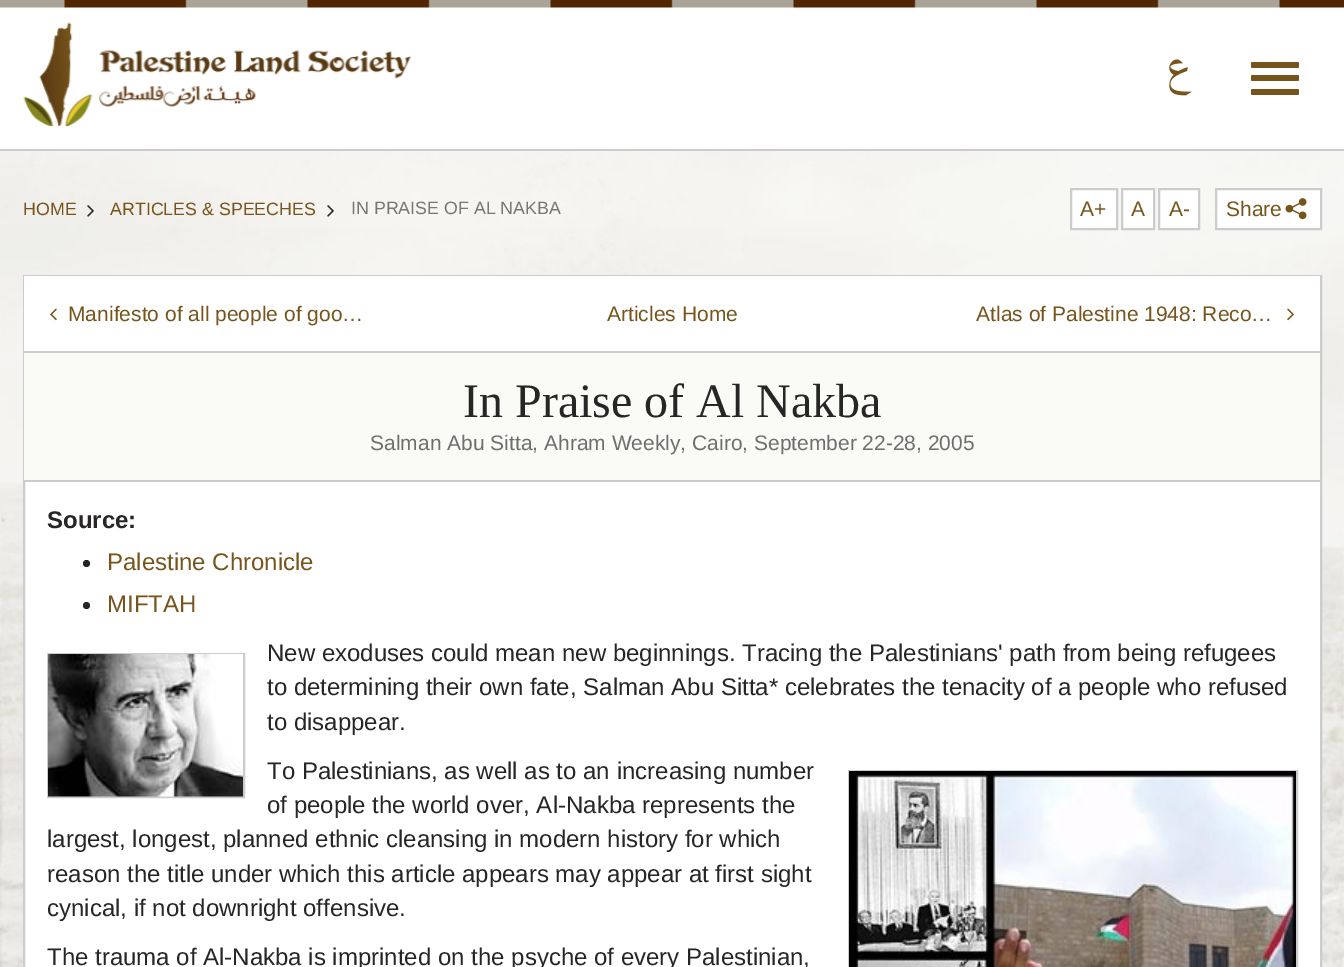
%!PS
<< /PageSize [1344 967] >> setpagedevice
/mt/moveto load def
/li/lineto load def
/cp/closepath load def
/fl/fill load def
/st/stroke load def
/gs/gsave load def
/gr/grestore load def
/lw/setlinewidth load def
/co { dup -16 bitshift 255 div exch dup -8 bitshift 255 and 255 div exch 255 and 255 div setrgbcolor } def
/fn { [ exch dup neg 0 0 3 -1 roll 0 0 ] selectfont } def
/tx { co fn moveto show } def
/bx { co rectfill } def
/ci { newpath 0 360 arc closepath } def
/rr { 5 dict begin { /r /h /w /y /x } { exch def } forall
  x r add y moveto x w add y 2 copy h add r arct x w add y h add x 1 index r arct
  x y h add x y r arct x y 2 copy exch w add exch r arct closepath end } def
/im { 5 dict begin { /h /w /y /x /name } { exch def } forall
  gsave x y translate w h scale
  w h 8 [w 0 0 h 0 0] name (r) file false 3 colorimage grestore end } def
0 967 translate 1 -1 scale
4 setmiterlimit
0 0 1344 967 16#FFFFFF bx
(media/1.raw) 0 151 1344 816 im
(media/2.raw) 0 0 1344 8 im
0 149 1344 2 16#CCCCCC bx
(media/3.raw) 23 22 388 105 im
(media/4.raw) 1169 59 23 37 im
16#77541B co
1251 62 48 6 1.5 rr fl
1251 75 48 6 1.5 rr fl
1251 89 48 6 1.5 rr fl
(media/5.raw) 87 205 7 12 im
(media/6.raw) 327 205 7 12 im
16#FFFFFF co
1071 189 mt 1117 189 li 1117 229 li 1071 229 li cp gs fl gr
16#CCCCCC co
2 lw
st
16#FFFFFF co
1122 189 mt 1154 189 li 1154 229 li 1122 229 li cp gs fl gr
16#CCCCCC co
st
16#FFFFFF co
1159 189 mt 1199 189 li 1199 229 li 1159 229 li cp gs fl gr
16#CCCCCC co
st
16#FFFFFF co
1216 189 mt 1321 189 li 1321 229 li 1216 229 li cp gs fl gr
16#CCCCCC co
st
(media/7.raw) 1285 198 22 22 im
25 482 1295 485 16#FFFFFF bx
16#CCCCCC co
24 276 1297 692 rectstroke
24 276 1296 75 16#FFFFFF bx
24 351 1296 2 16#CCCCCC bx
(media/8.raw) 50 308 7 13 im
(media/9.raw) 1287 308 7 13 im
24 353 1296 127 16#FAFAF7 bx
24 480 1296 2 16#CCCCCC bx
16#272525 co
86.5 563.5 3.5 ci fl
86.5 605.5 3.5 ci fl
16#CCCCCC co
48 654 196 143 rectstroke
(media/10.raw) 48 654 195 143 im
849 771 448 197 rectstroke
(media/11.raw) 849 771 447 196 im
(HOME) 23 215 /LiberationSans-Regular 17.8 16#77541B tx
(ARTICLES & SPEECHES) 110 215 /LiberationSans-Regular 17.8 16#77541B tx
(IN PRAISE OF AL NAKBA) 351 214 /LiberationSans-Regular 17.8 16#777777 tx
(A+) 1080 216 /LiberationSans-Regular 21 16#77541B tx
(A) 1131 216 /LiberationSans-Regular 21 16#77541B tx
(A-) 1169 216 /LiberationSans-Regular 21 16#77541B tx
(Share) 1226 216 /LiberationSans-Regular 21 16#77541B tx
(Manifesto of all people of goo…) 68 321 /LiberationSans-Regular 21 16#77541B tx
(Articles Home) 607 321 /LiberationSans-Regular 21 16#77541B tx
(Atlas of Palestine 1948: Reco…) 976 321 /LiberationSans-Regular 21 16#77541B tx
(In Praise of Al Nakba) 463 417 /LiberationSerif-Regular 48 16#272525 tx
(Salman Abu Sitta, Ahram Weekly, Cairo, September 22-28, 2005) 370 450 /LiberationSans-Regular 21 16#6E6E70 tx
(Source:) 47 528 /LiberationSans-Bold 24 16#272525 tx
(Palestine Chronicle) 107 570 /LiberationSans-Regular 24 16#77541B tx
(MIFTAH) 107 612 /LiberationSans-Regular 24 16#77541B tx
(New exoduses could mean new beginnings. Tracing the Palestinians' path from being refugees) 267 661 /LiberationSans-Regular 24 16#272525 tx
(to determining their own fate, Salman Abu Sitta* celebrates the tenacity of a people who refused) 267 695 /LiberationSans-Regular 24 16#272525 tx
(to disappear.) 267 730 /LiberationSans-Regular 24 16#272525 tx
(To Palestinians, as well as to an increasing number) 267 779 /LiberationSans-Regular 24 16#272525 tx
(of people the world over, Al-Nakba represents the) 267 813 /LiberationSans-Regular 24 16#272525 tx
(largest, longest, planned ethnic cleansing in modern history for which) 47 847 /LiberationSans-Regular 24 16#272525 tx
(reason the title under which this article appears may appear at first sight) 47 882 /LiberationSans-Regular 24 16#272525 tx
(cynical, if not downright offensive.) 47 916 /LiberationSans-Regular 24 16#272525 tx
(The trauma of Al-Nakba is imprinted on the psyche of every Palestinian,) 47 965 /LiberationSans-Regular 24 16#272525 tx
showpage
